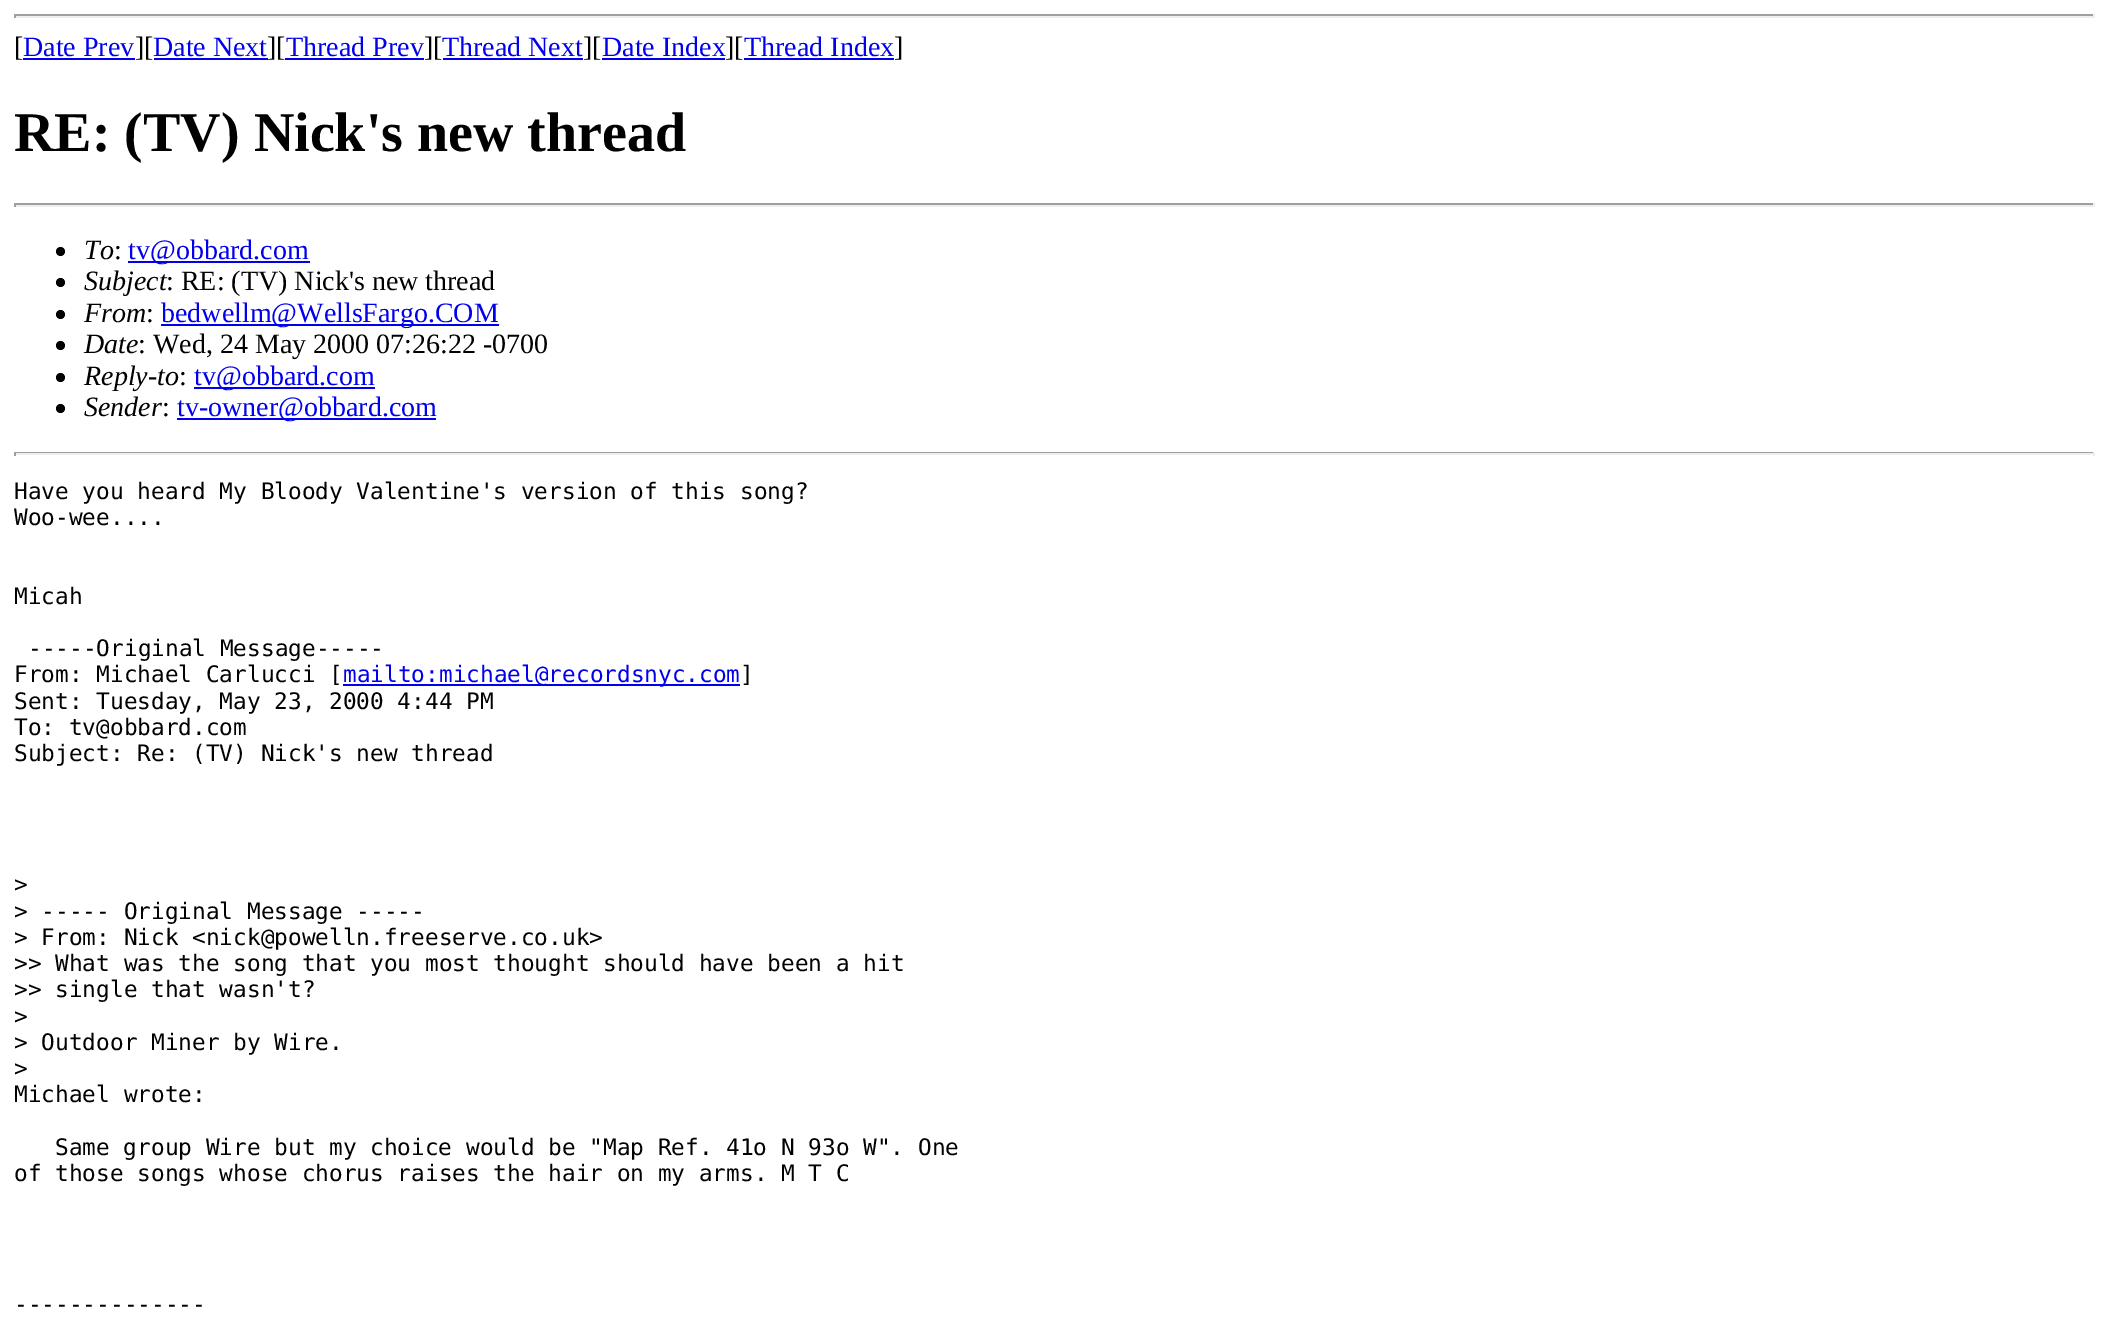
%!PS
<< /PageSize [2108 1334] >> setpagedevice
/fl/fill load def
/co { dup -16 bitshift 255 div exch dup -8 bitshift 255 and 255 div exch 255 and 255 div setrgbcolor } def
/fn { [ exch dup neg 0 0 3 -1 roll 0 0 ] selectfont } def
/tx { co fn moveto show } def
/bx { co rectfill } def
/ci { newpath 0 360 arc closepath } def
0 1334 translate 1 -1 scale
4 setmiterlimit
0 0 2108 1334 16#FFFFFF bx
14 14 2081 2 16#9F9F9F bx
2093 14 2 4 16#EEEEEE bx
14 16 2081 2 16#EEEEEE bx
14 14 2 4 16#9F9F9F bx
23 58 112 2 16#0000EE bx
154 58 114 2 16#0000EE bx
443 58 140 2 16#0000EE bx
602 58 123 2 16#0000EE bx
744 58 150 2 16#0000EE bx
14 203 2081 2 16#9F9F9F bx
2093 203 2 4 16#EEEEEE bx
14 205 2081 2 16#EEEEEE bx
14 203 2 4 16#9F9F9F bx
16#000000 co
60.5 251.5 4.5 ci fl
128 261 182 2 16#0000EE bx
16#000000 co
60.5 282.5 4.5 ci fl
60.5 314.5 4.5 ci fl
161 324 338 2 16#0000EE bx
16#000000 co
60.5 345.5 4.5 ci fl
60.5 377.5 4.5 ci fl
194 387 181 2 16#0000EE bx
16#000000 co
60.5 408.5 4.5 ci fl
177 418 259 2 16#0000EE bx
14 452 2081 1 16#9F9F9F bx
2093 452 2 4 16#EEEEEE bx
14 453 2081 2 16#EEEEEE bx
14 452 2 4 16#9F9F9F bx
343 684 397 2 16#0000EE bx
([) 14 56 /LiberationSerif-Regular 28 16#000000 tx
(Date Prev) 23 56 /LiberationSerif-Regular 28 16#0000EE tx
(][) 135 56 /LiberationSerif-Regular 28 16#000000 tx
(Date Next) 153 56 /LiberationSerif-Regular 28 16#0000EE tx
(][) 267 56 /LiberationSerif-Regular 28 16#000000 tx
(Thread Prev) 286 56 /LiberationSerif-Regular 28 16#0000EE tx
285 58 139 2 16#0000EE bx
(][) 424 56 /LiberationSerif-Regular 28 16#000000 tx
(Thread Next) 442 56 /LiberationSerif-Regular 28 16#0000EE tx
(][) 583 56 /LiberationSerif-Regular 28 16#000000 tx
(Date Index) 602 56 /LiberationSerif-Regular 28 16#0000EE tx
(][) 725 56 /LiberationSerif-Regular 28 16#000000 tx
(Thread Index) 744 56 /LiberationSerif-Regular 28 16#0000EE tx
(]) 894 56 /LiberationSerif-Regular 28 16#000000 tx
(RE: \(TV\) Nick's new thread) 14 151 /LiberationSerif-Bold 56 16#000000 tx
(To) 84 259 /LiberationSerif-Italic 28 16#000000 tx
(:) 114 259 /LiberationSerif-Regular 28 16#000000 tx
(tv@obbard.com) 128 259 /LiberationSerif-Regular 28 16#0000EE tx
(Subject) 84 290 /LiberationSerif-Italic 28 16#000000 tx
(: RE: \(TV\) Nick's new thread) 166 290 /LiberationSerif-Regular 28 16#000000 tx
(From) 84 322 /LiberationSerif-Italic 28 16#000000 tx
(:) 146 322 /LiberationSerif-Regular 28 16#000000 tx
(bedwellm@WellsFargo.COM) 161 322 /LiberationSerif-Regular 28 16#0000EE tx
(Date) 84 353 /LiberationSerif-Italic 28 16#000000 tx
(: Wed, 24 May 2000 07:26:22 -0700) 138 353 /LiberationSerif-Regular 28 16#000000 tx
(Reply-to) 84 385 /LiberationSerif-Italic 28 16#000000 tx
(:) 179 385 /LiberationSerif-Regular 28 16#000000 tx
(tv@obbard.com) 194 385 /LiberationSerif-Regular 28 16#0000EE tx
(Sender) 84 416 /LiberationSerif-Italic 28 16#000000 tx
(:) 162 416 /LiberationSerif-Regular 28 16#000000 tx
(tv-owner@obbard.com) 177 416 /LiberationSerif-Regular 28 16#0000EE tx
(Have you heard My Bloody Valentine's version of this song?) 14 499 /DejaVuSansMono-Regular 22.75 16#000000 tx
(Woo-wee....) 14 525 /DejaVuSansMono-Regular 22.75 16#000000 tx
(Micah) 14 604 /DejaVuSansMono-Regular 22.75 16#000000 tx
(-----Original Message-----) 28 656 /DejaVuSansMono-Regular 22.75 16#000000 tx
(From: Michael Carlucci [) 14 682 /DejaVuSansMono-Regular 22.75 16#000000 tx
(mailto:michael@recordsnyc.com) 343 682 /DejaVuSansMono-Regular 22.75 16#0000EE tx
(]) 740 682 /DejaVuSansMono-Regular 22.75 16#000000 tx
(Sent: Tuesday, May 23, 2000 4:44 PM) 14 709 /DejaVuSansMono-Regular 22.75 16#000000 tx
(To: tv@obbard.com) 14 735 /DejaVuSansMono-Regular 22.75 16#000000 tx
(Subject: Re: \(TV\) Nick's new thread) 14 761 /DejaVuSansMono-Regular 22.75 16#000000 tx
(>) 14 892 /DejaVuSansMono-Regular 22.75 16#000000 tx
(> ----- Original Message -----) 14 919 /DejaVuSansMono-Regular 22.75 16#000000 tx
(> From: Nick <nick@powelln.freeserve.co.uk>) 14 945 /DejaVuSansMono-Regular 22.75 16#000000 tx
(>> What was the song that you most thought should have been a hit) 14 971 /DejaVuSansMono-Regular 22.75 16#000000 tx
(>> single that wasn't?) 14 997 /DejaVuSansMono-Regular 22.75 16#000000 tx
(>) 14 1024 /DejaVuSansMono-Regular 22.75 16#000000 tx
(> Outdoor Miner by Wire.) 14 1050 /DejaVuSansMono-Regular 22.75 16#000000 tx
(>) 14 1076 /DejaVuSansMono-Regular 22.75 16#000000 tx
(Michael wrote:) 14 1102 /DejaVuSansMono-Regular 22.75 16#000000 tx
(Same group Wire but my choice would be "Map Ref. 41o N 93o W". One) 55 1155 /DejaVuSansMono-Regular 22.75 16#000000 tx
(of those songs whose chorus raises the hair on my arms. M T C) 14 1181 /DejaVuSansMono-Regular 22.75 16#000000 tx
(--------------) 14 1312 /DejaVuSansMono-Regular 22.75 16#000000 tx
showpage
